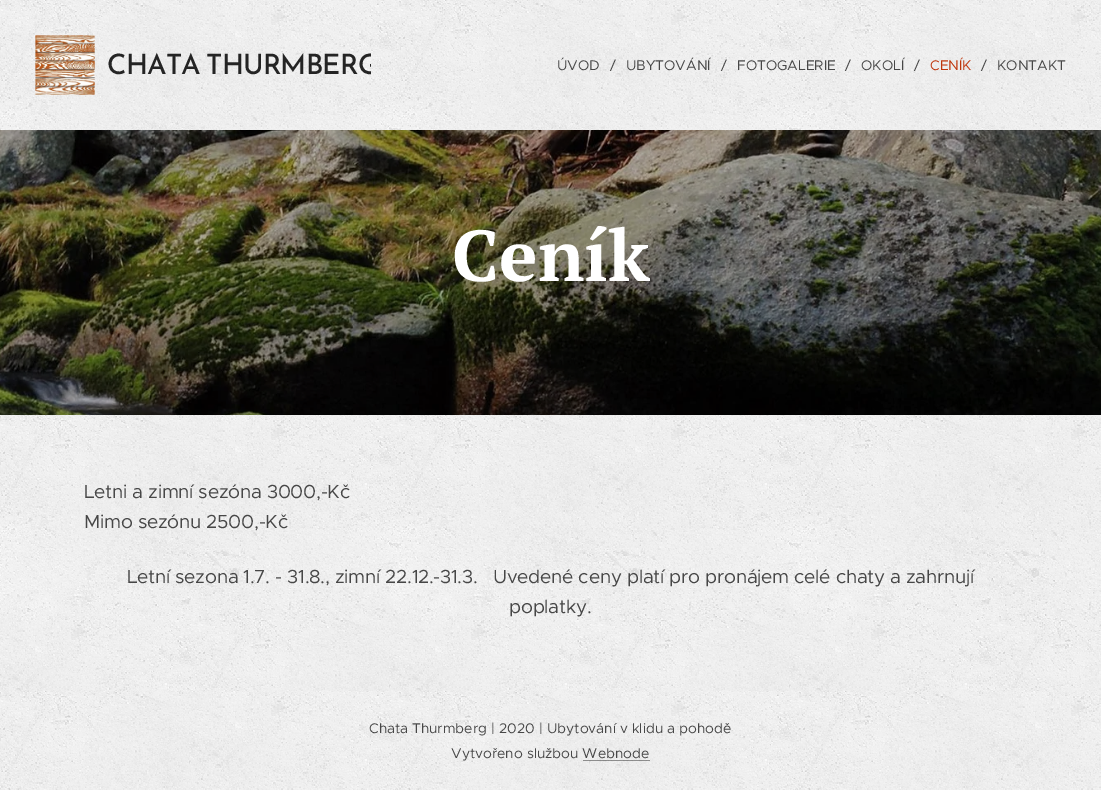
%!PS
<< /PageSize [1101 790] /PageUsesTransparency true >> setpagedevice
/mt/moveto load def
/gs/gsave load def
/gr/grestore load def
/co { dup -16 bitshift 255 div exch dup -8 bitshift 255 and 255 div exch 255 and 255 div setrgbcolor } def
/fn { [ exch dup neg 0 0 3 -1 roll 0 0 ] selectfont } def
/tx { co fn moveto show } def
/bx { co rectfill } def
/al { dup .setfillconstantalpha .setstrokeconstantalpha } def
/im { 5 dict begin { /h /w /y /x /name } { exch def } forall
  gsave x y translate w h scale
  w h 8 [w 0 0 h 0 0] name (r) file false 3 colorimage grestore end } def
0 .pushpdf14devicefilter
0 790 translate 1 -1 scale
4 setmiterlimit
0 0 1101 790 16#FFFFFF bx
(media/1.raw) 0 0 1101 130 im
(media/2.raw) 35 35 60 60 im
(media/3.raw) 0 130 1101 285 im
(media/4.raw) 0 415 1101 276 im
(media/5.raw) 0 691 1101 99 im
gs
101 44 270 42 rectclip
/JosefinSans-Medium 28 fn
16#242424 co
107 74 mt -2 0 32 -.8 0 (CHATA THURMBERG) awidthshow
gr
(ÚVOD) 557 70 /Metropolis-Regular 14 16#474747 tx
(/) 610 70 /Metropolis-Regular 14 16#474747 tx
(UBYTOVÁNÍ) 626 70 /Metropolis-Regular 14 16#474747 tx
(/) 721 70 /Metropolis-Regular 14 16#474747 tx
(FOTOGALERIE) 737 70 /Metropolis-Regular 14 16#474747 tx
(/) 845 70 /Metropolis-Regular 14 16#474747 tx
(OKOLÍ) 861 70 /Metropolis-Regular 14 16#474747 tx
(/) 914 70 /Metropolis-Regular 14 16#474747 tx
(CENÍK) 930 70 /Metropolis-Regular 14 16#BF360C tx
(/) 981 70 /Metropolis-Regular 14 16#474747 tx
(KONTAKT) 997 70 /Metropolis-Regular 14 16#474747 tx
(Ceník) 452 281 /PTSerif-Bold 72 16#FFFFFF tx
/Metropolis-Regular 19 fn
16#474747 co
84 498 mt -.28 0 (Letni a zimní sezóna 3000,-Kč) ashow
84 528 mt -.28 0 (Mimo sezónu 2500,-Kč) ashow
127 583 mt -.28 0 (Letní sezona 1.7. - 31.8., zimní 22.12.-31.3.   Uvedené ceny platí pro pronájem celé chaty a zahrnují) ashow
509 613 mt -.28 0 (poplatky.) ashow
(Chata Thurmberg | 2020 | Ubytování v klidu a pohodě) 369 733 /Metropolis-Regular 14 16#474747 tx
(Vytvořeno službou Webnode) 451 758 /Metropolis-Regular 14 16#474747 tx
0.4 al
583 760 67 1 16#000000 bx
.poppdf14devicefilter showpage
